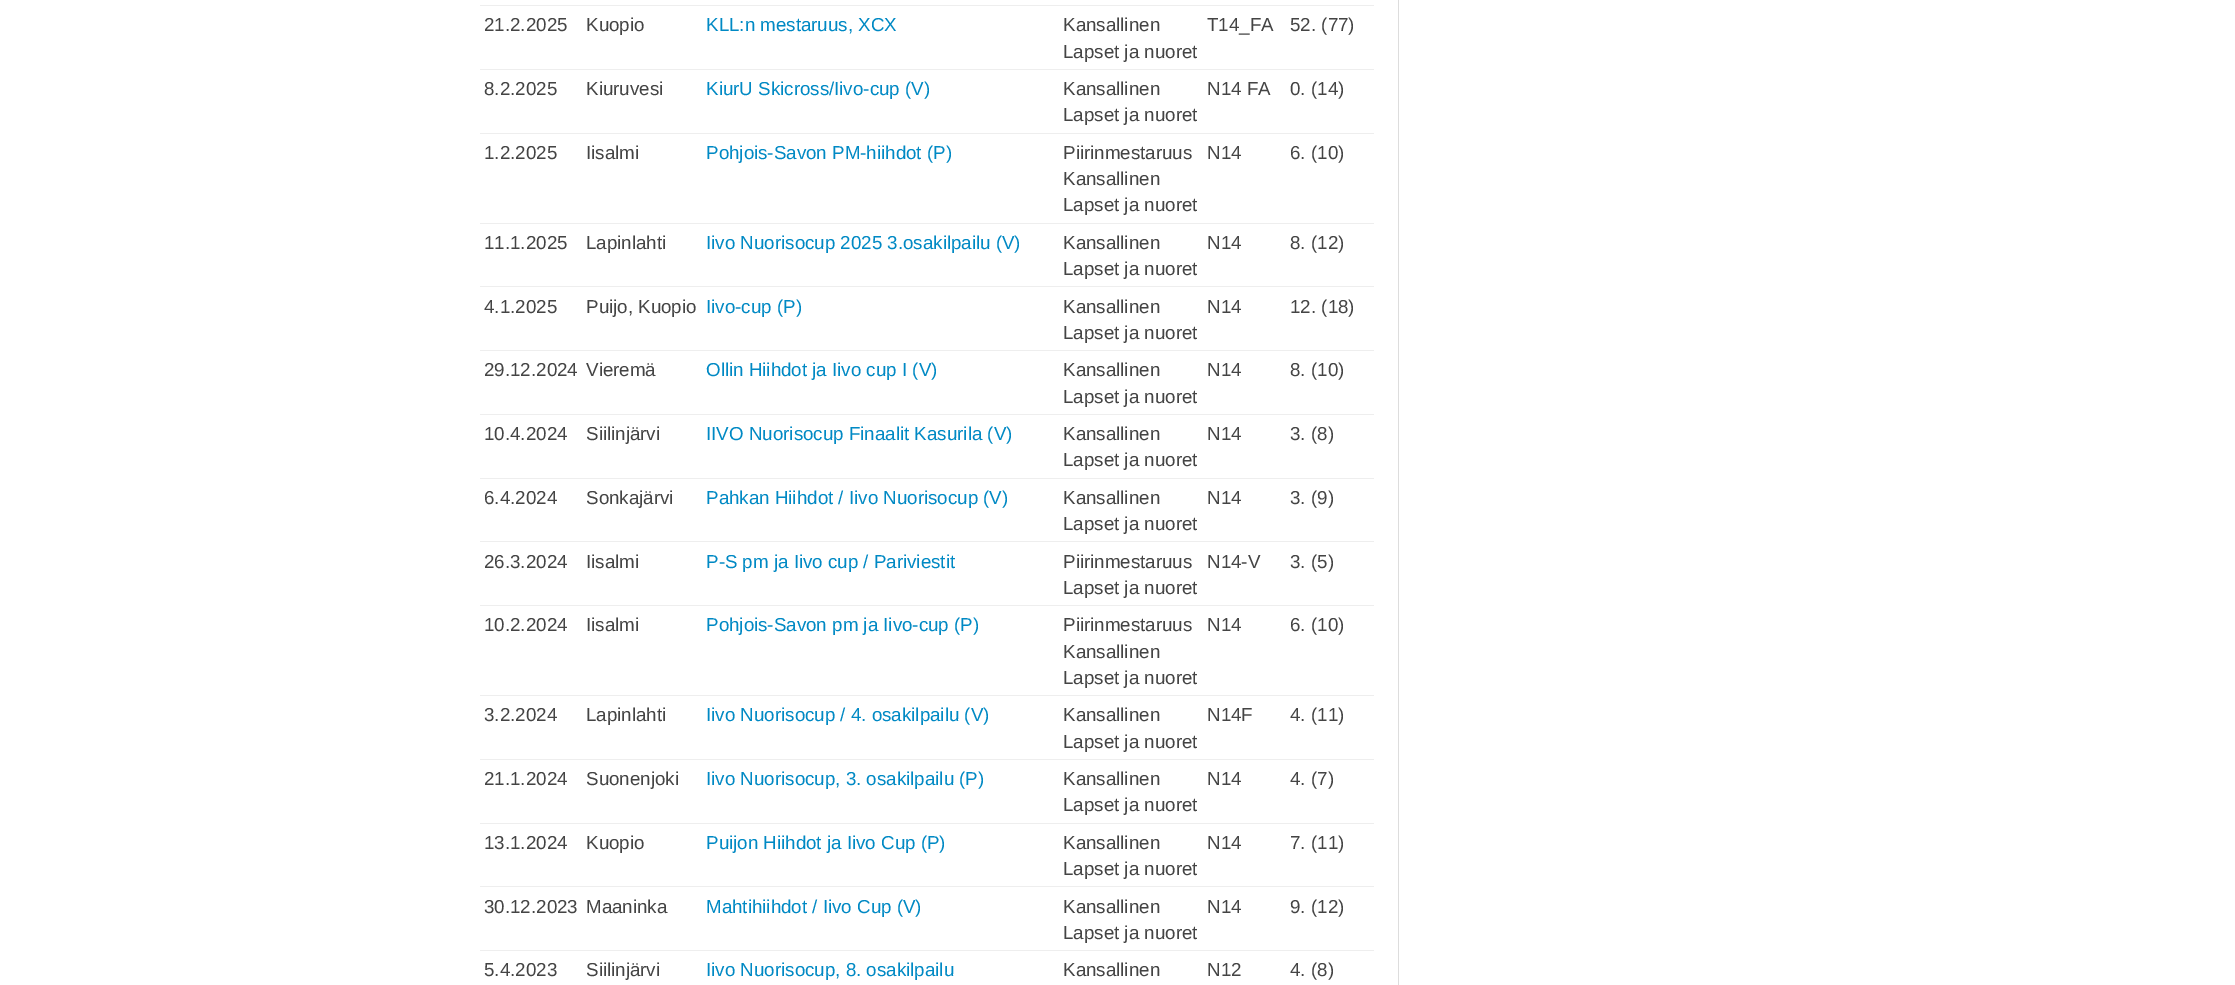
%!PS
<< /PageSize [2235 985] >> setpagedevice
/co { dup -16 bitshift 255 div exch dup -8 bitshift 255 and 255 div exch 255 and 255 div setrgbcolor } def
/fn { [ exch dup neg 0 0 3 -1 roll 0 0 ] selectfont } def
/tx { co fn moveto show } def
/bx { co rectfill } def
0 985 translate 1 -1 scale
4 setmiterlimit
0 0 2235 985 16#FFFFFF bx
1398 0 1 985 16#DDDDDD bx
480 5 894 1 16#EEEEEE bx
480 69 894 1 16#EEEEEE bx
480 133 894 1 16#EEEEEE bx
480 223 894 1 16#EEEEEE bx
480 286 894 1 16#EEEEEE bx
480 350 894 1 16#EEEEEE bx
480 414 894 1 16#EEEEEE bx
480 478 894 1 16#EEEEEE bx
480 541 894 1 16#EEEEEE bx
480 605 894 1 16#EEEEEE bx
480 695 894 1 16#EEEEEE bx
480 759 894 1 16#EEEEEE bx
480 823 894 1 16#EEEEEE bx
480 886 894 1 16#EEEEEE bx
480 950 894 1 16#EEEEEE bx
(21.2.2025) 484 31 /LiberationSans-Regular 18.75 16#444444 tx
(Kuopio) 586 31 /LiberationSans-Regular 18.75 16#444444 tx
(KLL:n mestaruus, XCX) 706 31 /LiberationSans-Regular 18.75 16#0089C4 tx
(Kansallinen) 1063 31 /LiberationSans-Regular 18.75 16#444444 tx
(Lapset ja nuoret) 1063 58 /LiberationSans-Regular 18.75 16#444444 tx
(T14_FA) 1207 31 /LiberationSans-Regular 18.75 16#444444 tx
(52. \(77\)) 1290 31 /LiberationSans-Regular 18.75 16#444444 tx
(8.2.2025) 484 95 /LiberationSans-Regular 18.75 16#444444 tx
(Kiuruvesi) 586 95 /LiberationSans-Regular 18.75 16#444444 tx
(KiurU Skicross/Iivo-cup \(V\)) 706 95 /LiberationSans-Regular 18.75 16#0089C4 tx
(Kansallinen) 1063 95 /LiberationSans-Regular 18.75 16#444444 tx
(Lapset ja nuoret) 1063 121 /LiberationSans-Regular 18.75 16#444444 tx
(N14 FA) 1207 95 /LiberationSans-Regular 18.75 16#444444 tx
(0. \(14\)) 1290 95 /LiberationSans-Regular 18.75 16#444444 tx
(1.2.2025) 484 159 /LiberationSans-Regular 18.75 16#444444 tx
(Iisalmi) 586 159 /LiberationSans-Regular 18.75 16#444444 tx
(Pohjois-Savon PM-hiihdot \(P\)) 706 159 /LiberationSans-Regular 18.75 16#0089C4 tx
(Piirinmestaruus) 1063 159 /LiberationSans-Regular 18.75 16#444444 tx
(Kansallinen) 1063 185 /LiberationSans-Regular 18.75 16#444444 tx
(Lapset ja nuoret) 1063 211 /LiberationSans-Regular 18.75 16#444444 tx
(N14) 1207 159 /LiberationSans-Regular 18.75 16#444444 tx
(6. \(10\)) 1290 159 /LiberationSans-Regular 18.75 16#444444 tx
(11.1.2025) 484 249 /LiberationSans-Regular 18.75 16#444444 tx
(Lapinlahti) 586 249 /LiberationSans-Regular 18.75 16#444444 tx
(Iivo Nuorisocup 2025 3.osakilpailu \(V\)) 706 249 /LiberationSans-Regular 18.75 16#0089C4 tx
(Kansallinen) 1063 249 /LiberationSans-Regular 18.75 16#444444 tx
(Lapset ja nuoret) 1063 275 /LiberationSans-Regular 18.75 16#444444 tx
(N14) 1207 249 /LiberationSans-Regular 18.75 16#444444 tx
(8. \(12\)) 1290 249 /LiberationSans-Regular 18.75 16#444444 tx
(4.1.2025) 484 313 /LiberationSans-Regular 18.75 16#444444 tx
(Puijo, Kuopio) 586 313 /LiberationSans-Regular 18.75 16#444444 tx
(Iivo-cup \(P\)) 706 313 /LiberationSans-Regular 18.75 16#0089C4 tx
(Kansallinen) 1063 313 /LiberationSans-Regular 18.75 16#444444 tx
(Lapset ja nuoret) 1063 339 /LiberationSans-Regular 18.75 16#444444 tx
(N14) 1207 313 /LiberationSans-Regular 18.75 16#444444 tx
(12. \(18\)) 1290 313 /LiberationSans-Regular 18.75 16#444444 tx
(29.12.2024) 484 376 /LiberationSans-Regular 18.75 16#444444 tx
(Vieremä) 586 376 /LiberationSans-Regular 18.75 16#444444 tx
(Ollin Hiihdot ja Iivo cup I \(V\)) 706 376 /LiberationSans-Regular 18.75 16#0089C4 tx
(Kansallinen) 1063 376 /LiberationSans-Regular 18.75 16#444444 tx
(Lapset ja nuoret) 1063 403 /LiberationSans-Regular 18.75 16#444444 tx
(N14) 1207 376 /LiberationSans-Regular 18.75 16#444444 tx
(8. \(10\)) 1290 376 /LiberationSans-Regular 18.75 16#444444 tx
(10.4.2024) 484 440 /LiberationSans-Regular 18.75 16#444444 tx
(Siilinjärvi) 586 440 /LiberationSans-Regular 18.75 16#444444 tx
(IIVO Nuorisocup Finaalit Kasurila \(V\)) 706 440 /LiberationSans-Regular 18.75 16#0089C4 tx
(Kansallinen) 1063 440 /LiberationSans-Regular 18.75 16#444444 tx
(Lapset ja nuoret) 1063 466 /LiberationSans-Regular 18.75 16#444444 tx
(N14) 1207 440 /LiberationSans-Regular 18.75 16#444444 tx
(3. \(8\)) 1290 440 /LiberationSans-Regular 18.75 16#444444 tx
(6.4.2024) 484 504 /LiberationSans-Regular 18.75 16#444444 tx
(Sonkajärvi) 586 504 /LiberationSans-Regular 18.75 16#444444 tx
(Pahkan Hiihdot / Iivo Nuorisocup \(V\)) 706 504 /LiberationSans-Regular 18.75 16#0089C4 tx
(Kansallinen) 1063 504 /LiberationSans-Regular 18.75 16#444444 tx
(Lapset ja nuoret) 1063 530 /LiberationSans-Regular 18.75 16#444444 tx
(N14) 1207 504 /LiberationSans-Regular 18.75 16#444444 tx
(3. \(9\)) 1290 504 /LiberationSans-Regular 18.75 16#444444 tx
(26.3.2024) 484 568 /LiberationSans-Regular 18.75 16#444444 tx
(Iisalmi) 586 568 /LiberationSans-Regular 18.75 16#444444 tx
(P-S pm ja Iivo cup / Pariviestit) 706 568 /LiberationSans-Regular 18.75 16#0089C4 tx
(Piirinmestaruus) 1063 568 /LiberationSans-Regular 18.75 16#444444 tx
(Lapset ja nuoret) 1063 594 /LiberationSans-Regular 18.75 16#444444 tx
(N14-V) 1207 568 /LiberationSans-Regular 18.75 16#444444 tx
(3. \(5\)) 1290 568 /LiberationSans-Regular 18.75 16#444444 tx
(10.2.2024) 484 631 /LiberationSans-Regular 18.75 16#444444 tx
(Iisalmi) 586 631 /LiberationSans-Regular 18.75 16#444444 tx
(Pohjois-Savon pm ja Iivo-cup \(P\)) 706 631 /LiberationSans-Regular 18.75 16#0089C4 tx
(Piirinmestaruus) 1063 631 /LiberationSans-Regular 18.75 16#444444 tx
(Kansallinen) 1063 658 /LiberationSans-Regular 18.75 16#444444 tx
(Lapset ja nuoret) 1063 684 /LiberationSans-Regular 18.75 16#444444 tx
(N14) 1207 631 /LiberationSans-Regular 18.75 16#444444 tx
(6. \(10\)) 1290 631 /LiberationSans-Regular 18.75 16#444444 tx
(3.2.2024) 484 721 /LiberationSans-Regular 18.75 16#444444 tx
(Lapinlahti) 586 721 /LiberationSans-Regular 18.75 16#444444 tx
(Iivo Nuorisocup / 4. osakilpailu \(V\)) 706 721 /LiberationSans-Regular 18.75 16#0089C4 tx
(Kansallinen) 1063 721 /LiberationSans-Regular 18.75 16#444444 tx
(Lapset ja nuoret) 1063 748 /LiberationSans-Regular 18.75 16#444444 tx
(N14F) 1207 721 /LiberationSans-Regular 18.75 16#444444 tx
(4. \(11\)) 1290 721 /LiberationSans-Regular 18.75 16#444444 tx
(21.1.2024) 484 785 /LiberationSans-Regular 18.75 16#444444 tx
(Suonenjoki) 586 785 /LiberationSans-Regular 18.75 16#444444 tx
(Iivo Nuorisocup, 3. osakilpailu \(P\)) 706 785 /LiberationSans-Regular 18.75 16#0089C4 tx
(Kansallinen) 1063 785 /LiberationSans-Regular 18.75 16#444444 tx
(Lapset ja nuoret) 1063 811 /LiberationSans-Regular 18.75 16#444444 tx
(N14) 1207 785 /LiberationSans-Regular 18.75 16#444444 tx
(4. \(7\)) 1290 785 /LiberationSans-Regular 18.75 16#444444 tx
(13.1.2024) 484 849 /LiberationSans-Regular 18.75 16#444444 tx
(Kuopio) 586 849 /LiberationSans-Regular 18.75 16#444444 tx
(Puijon Hiihdot ja Iivo Cup \(P\)) 706 849 /LiberationSans-Regular 18.75 16#0089C4 tx
(Kansallinen) 1063 849 /LiberationSans-Regular 18.75 16#444444 tx
(Lapset ja nuoret) 1063 875 /LiberationSans-Regular 18.75 16#444444 tx
(N14) 1207 849 /LiberationSans-Regular 18.75 16#444444 tx
(7. \(11\)) 1290 849 /LiberationSans-Regular 18.75 16#444444 tx
(30.12.2023) 484 913 /LiberationSans-Regular 18.75 16#444444 tx
(Maaninka) 586 913 /LiberationSans-Regular 18.75 16#444444 tx
(Mahtihiihdot / Iivo Cup \(V\)) 706 913 /LiberationSans-Regular 18.75 16#0089C4 tx
(Kansallinen) 1063 913 /LiberationSans-Regular 18.75 16#444444 tx
(Lapset ja nuoret) 1063 939 /LiberationSans-Regular 18.75 16#444444 tx
(N14) 1207 913 /LiberationSans-Regular 18.75 16#444444 tx
(9. \(12\)) 1290 913 /LiberationSans-Regular 18.75 16#444444 tx
(5.4.2023) 484 976 /LiberationSans-Regular 18.75 16#444444 tx
(Siilinjärvi) 586 976 /LiberationSans-Regular 18.75 16#444444 tx
(Iivo Nuorisocup, 8. osakilpailu) 706 976 /LiberationSans-Regular 18.75 16#0089C4 tx
(Kansallinen) 1063 976 /LiberationSans-Regular 18.75 16#444444 tx
(N12) 1207 976 /LiberationSans-Regular 18.75 16#444444 tx
(4. \(8\)) 1290 976 /LiberationSans-Regular 18.75 16#444444 tx
showpage
